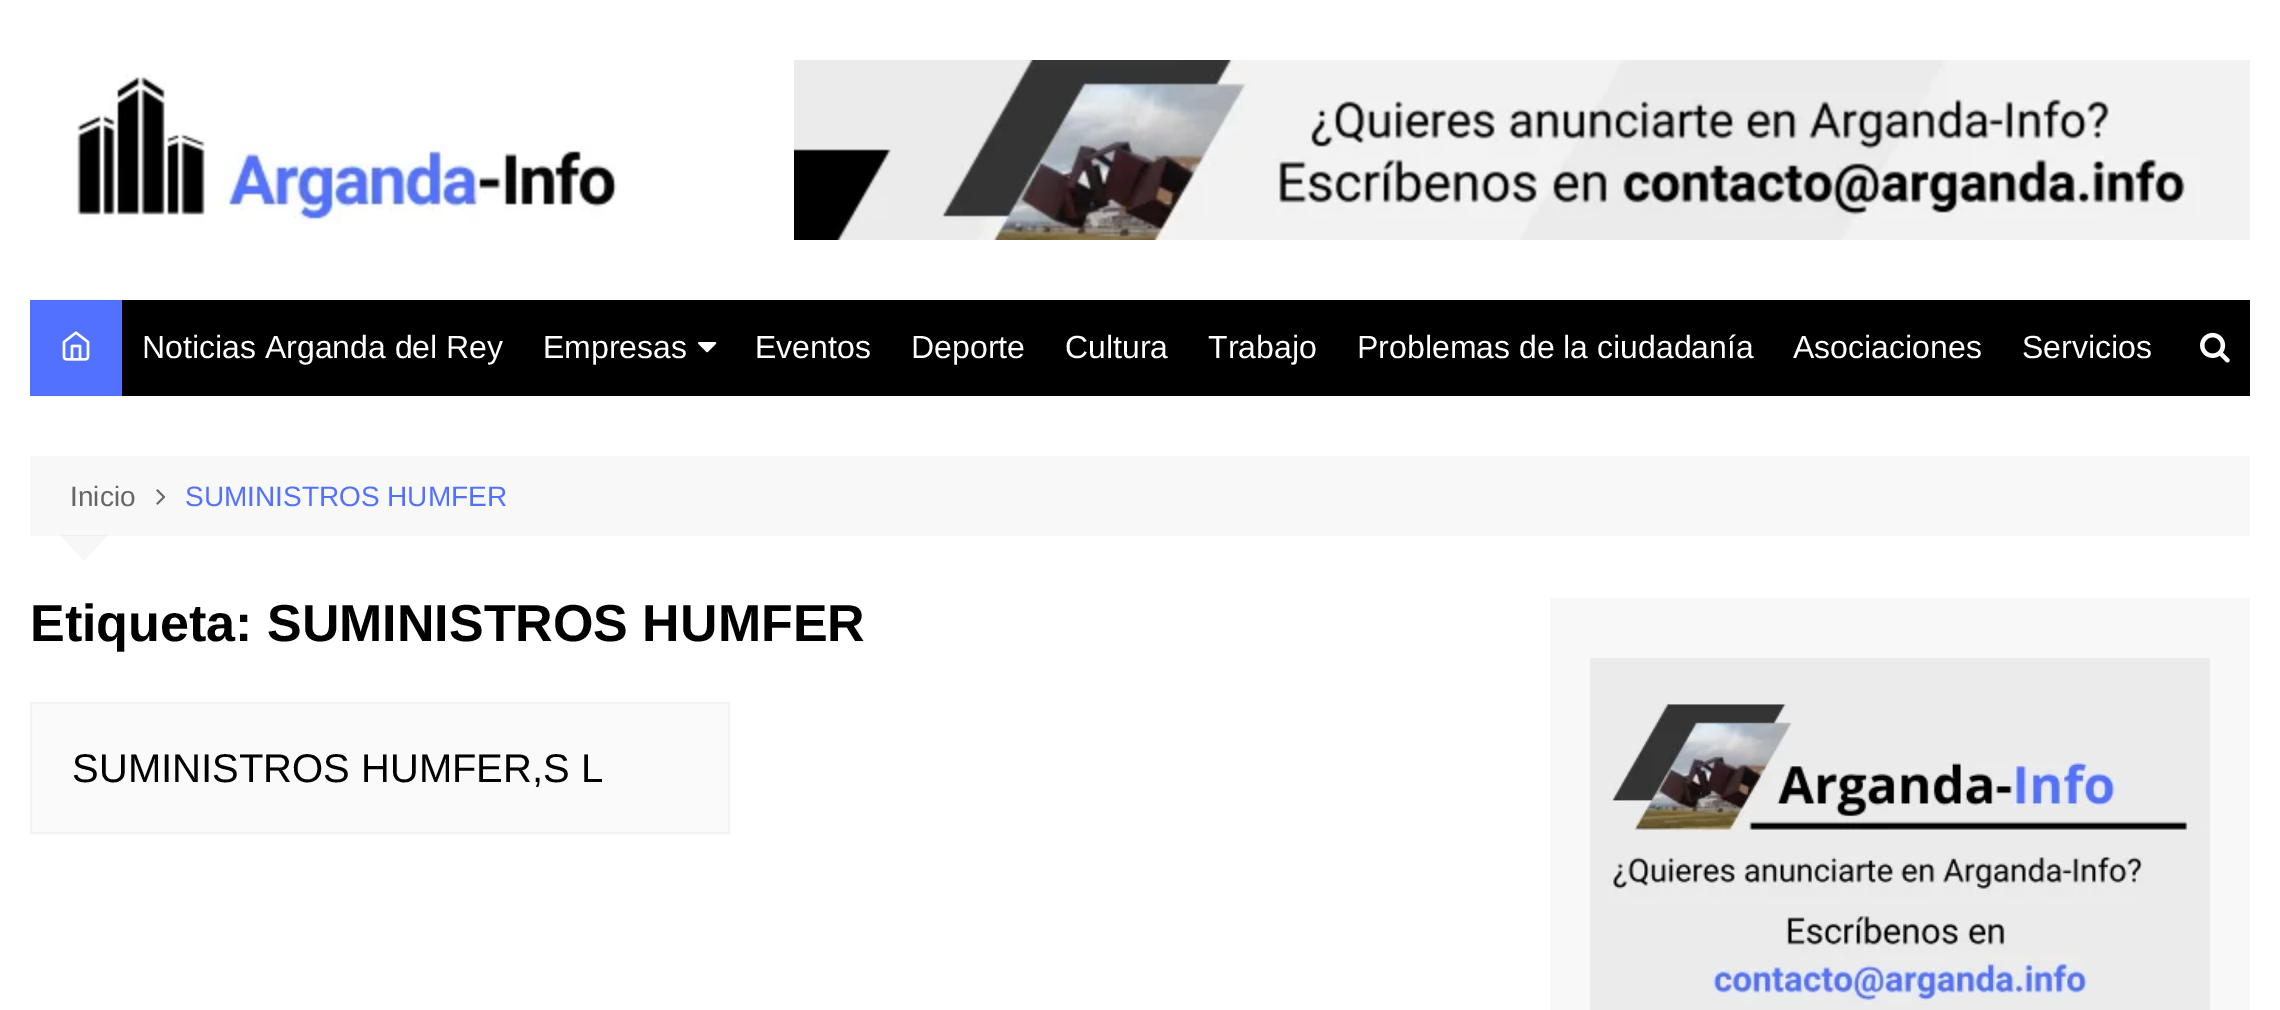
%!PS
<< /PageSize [2280 1010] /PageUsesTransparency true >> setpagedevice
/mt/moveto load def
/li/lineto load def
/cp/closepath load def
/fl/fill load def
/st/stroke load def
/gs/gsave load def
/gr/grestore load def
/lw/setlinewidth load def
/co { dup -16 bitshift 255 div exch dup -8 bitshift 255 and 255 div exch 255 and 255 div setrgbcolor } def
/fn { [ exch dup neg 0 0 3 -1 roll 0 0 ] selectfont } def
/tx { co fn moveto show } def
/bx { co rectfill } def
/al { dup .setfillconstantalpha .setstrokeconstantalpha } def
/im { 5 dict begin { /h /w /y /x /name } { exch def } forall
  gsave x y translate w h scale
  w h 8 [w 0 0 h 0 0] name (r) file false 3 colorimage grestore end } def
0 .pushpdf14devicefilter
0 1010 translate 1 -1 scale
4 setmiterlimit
0 0 2280 1010 16#FFFFFF bx
(media/1.raw) 77 74 540 151 im
(media/2.raw) 794 60 1456 180 im
122 300 2128 96 16#000000 bx
30 300 92 96 16#5271FF bx
(media/3.raw) 62 331 28 30 im
(media/4.raw) 698 342 19 11 im
(media/5.raw) 2200 332 30 31 im
30 456 2220 80 16#F8F8F8 bx
(media/6.raw) 156 489 10 16 im
0.03 al
16#000000 co
60 535 mt 108 535 li 84 561 li cp fl
1 al
16#FAFAFA co
31 703 mt 729 703 li 729 833 li 31 833 li cp gs fl gr
16#F3F3F3 co
2 lw
st
1550 598 700 412 16#F8F8F8 bx
(media/7.raw) 1590 658 620 352 im
(Noticias Arganda del Rey) 142 358 /LiberationSans-Regular 32 16#FFFFFF tx
(Empresas) 543 358 /LiberationSans-Regular 32 16#FFFFFF tx
(Eventos) 755 358 /LiberationSans-Regular 32 16#FFFFFF tx
(Deporte) 911 358 /LiberationSans-Regular 32 16#FFFFFF tx
(Cultura) 1065 358 /LiberationSans-Regular 32 16#FFFFFF tx
(Trabajo) 1208 358 /LiberationSans-Regular 32 16#FFFFFF tx
(Problemas de la ciudadanía) 1357 358 /LiberationSans-Regular 32 16#FFFFFF tx
(Asociaciones) 1793 358 /LiberationSans-Regular 32 16#FFFFFF tx
(Servicios) 2022 358 /LiberationSans-Regular 32 16#FFFFFF tx
(Inicio) 70 506 /LiberationSans-Regular 28 16#666666 tx
(SUMINISTROS HUMFER) 185 506 /LiberationSans-Regular 28 16#5271FF tx
(Etiqueta: SUMINISTROS HUMFER) 30 641 /LiberationSans-Bold 52 16#010101 tx
(SUMINISTROS HUMFER,S L) 72 782 /LiberationSans-Regular 40 16#010101 tx
.poppdf14devicefilter showpage
